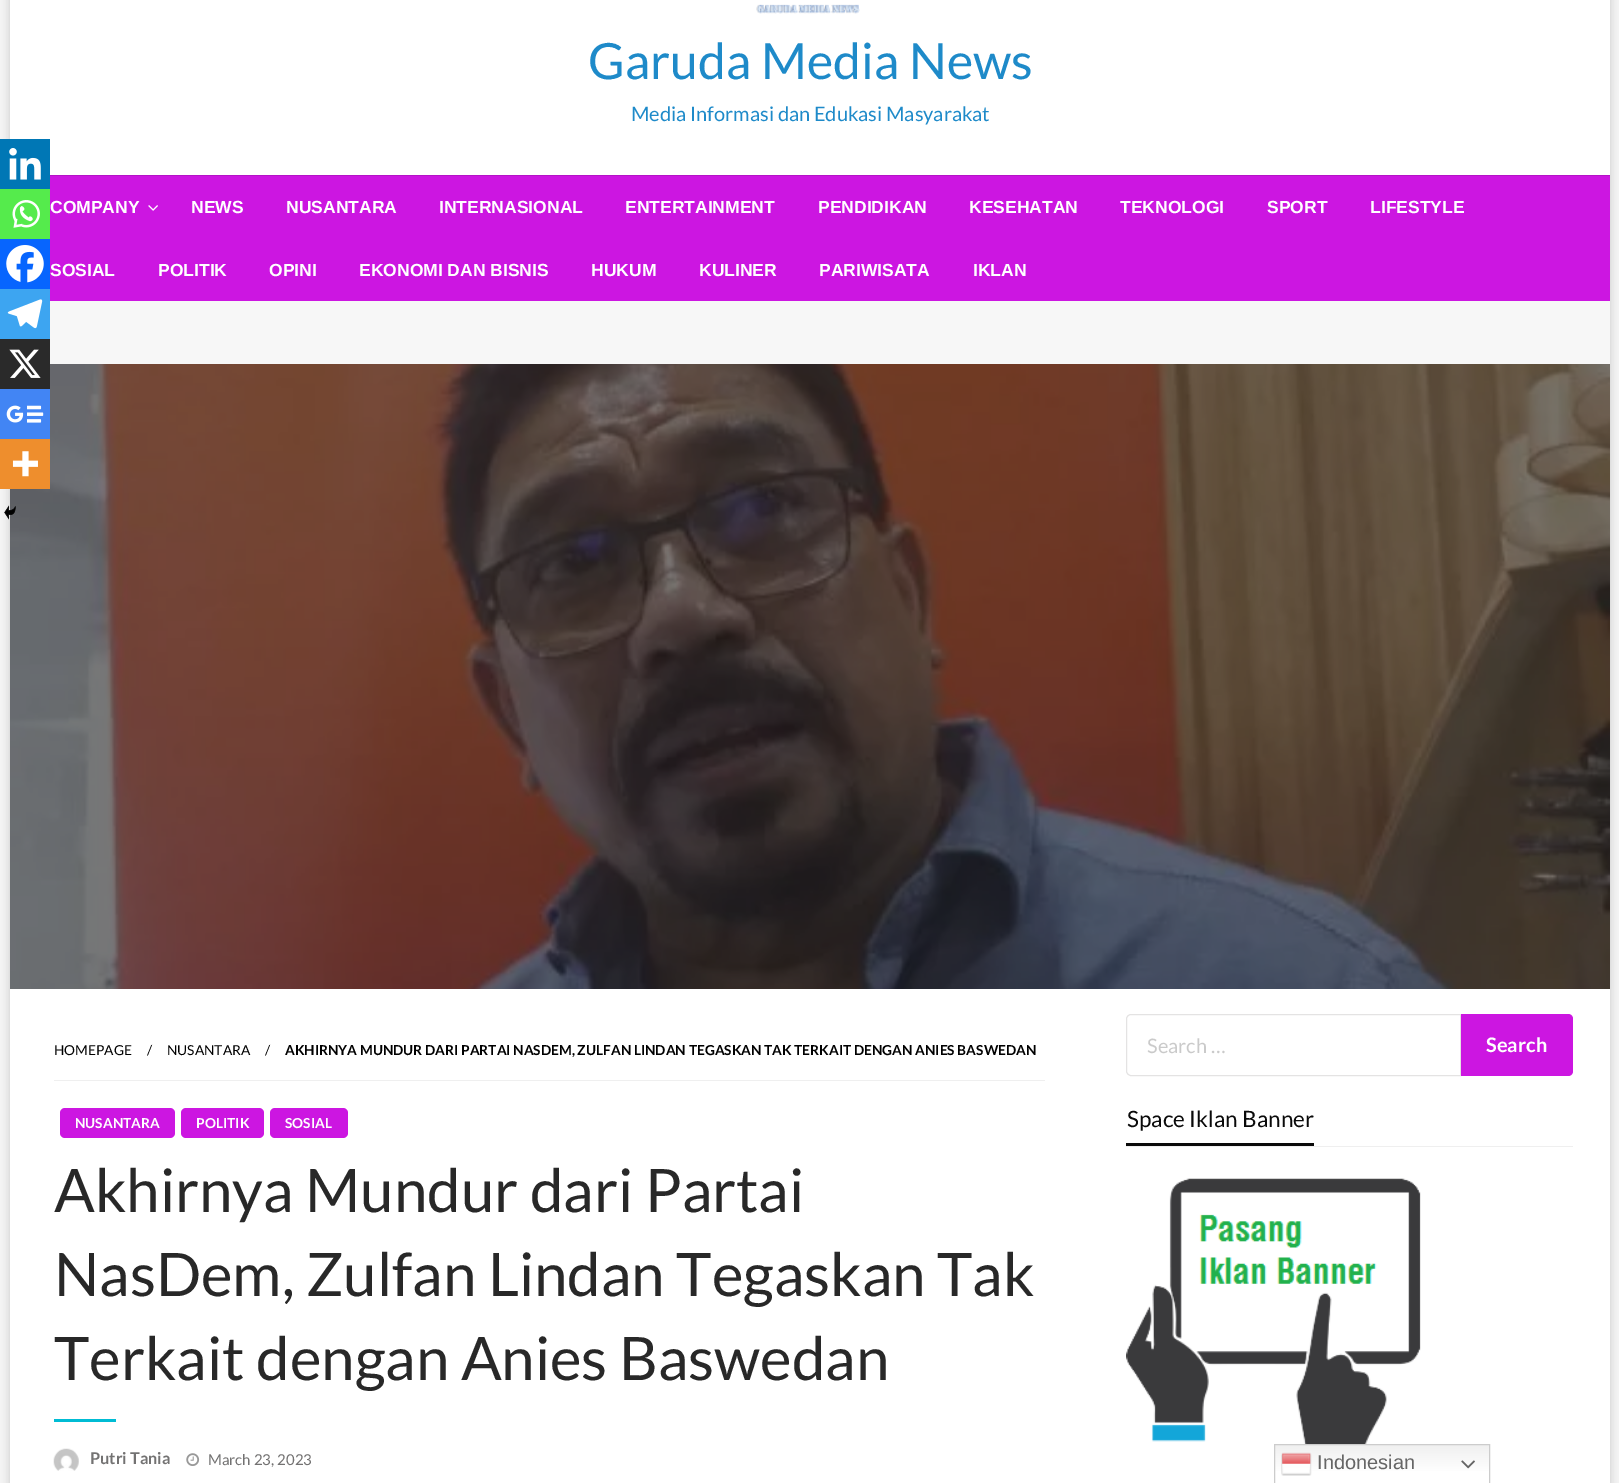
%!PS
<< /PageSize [1619 1483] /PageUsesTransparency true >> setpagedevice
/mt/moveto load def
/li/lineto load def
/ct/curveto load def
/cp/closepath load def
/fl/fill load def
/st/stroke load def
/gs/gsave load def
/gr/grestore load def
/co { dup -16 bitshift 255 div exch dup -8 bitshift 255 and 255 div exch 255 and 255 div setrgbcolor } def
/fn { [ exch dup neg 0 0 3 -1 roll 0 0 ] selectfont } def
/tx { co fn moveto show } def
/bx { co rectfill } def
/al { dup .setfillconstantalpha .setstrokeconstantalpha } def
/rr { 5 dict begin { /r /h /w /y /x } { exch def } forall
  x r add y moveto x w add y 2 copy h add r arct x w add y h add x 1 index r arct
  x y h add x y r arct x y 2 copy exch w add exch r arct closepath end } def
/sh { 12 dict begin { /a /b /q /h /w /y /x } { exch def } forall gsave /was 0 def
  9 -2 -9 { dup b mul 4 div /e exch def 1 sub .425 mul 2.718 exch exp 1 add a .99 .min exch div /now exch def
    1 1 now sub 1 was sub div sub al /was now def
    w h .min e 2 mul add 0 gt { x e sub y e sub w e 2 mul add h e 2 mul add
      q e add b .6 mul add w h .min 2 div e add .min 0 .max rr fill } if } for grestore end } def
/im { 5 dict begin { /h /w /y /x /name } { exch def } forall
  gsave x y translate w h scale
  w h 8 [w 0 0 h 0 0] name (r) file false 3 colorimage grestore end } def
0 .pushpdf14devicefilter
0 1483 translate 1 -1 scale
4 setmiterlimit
0 0 1619 1483 16#F7F7F7 bx
gs
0 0 mt 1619 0 li 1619 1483 li 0 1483 li cp 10 -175 mt 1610 -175 li 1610 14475 li 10 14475 li cp eoclip newpath
16#000000 co
10 -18 1600 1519 0 6 .09 sh
10 -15 1600 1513 0 5 .1 sh
gr
10 0 1600 175 16#FFFFFF bx
(media/1.raw) 756 4 104 10 im
50 176 1560 125 16#CC16E1 bx
50 175 1560 1 16#B413C6 bx
(media/2.raw) 148 205 10 6 im
10 989 1600 494 16#FFFFFF bx
(media/3.raw) 10 364 1600 625 im
0 139 50 50 16#0077B5 bx
(media/4.raw) 9 148 32 32 im
0 189 50 50 16#55EB4C bx
(media/5.raw) 12 200 28 28 im
0 239 50 50 16#0765FE bx
(media/6.raw) 6 245 38 38 im
0 289 50 50 16#3DA5F1 bx
(media/7.raw) 7 299 36 30 im
0 339 50 50 16#2A2A2A bx
(media/8.raw) 9 349 32 29 im
0 389 50 50 16#4285F4 bx
(media/9.raw) 6 405 38 18 im
0 439 50 50 16#EE8E2D bx
(media/10.raw) 12 451 26 26 im
(media/11.raw) 4 505 12 15 im
54 1080 991 1 16#EFEFEF bx
16#CC16E1 co
60 1108 115 30 5 rr fl
181 1108 83 30 5 rr fl
270 1108 78 30 5 rr fl
54 1419 62 3 16#00BCD4 bx
(media/12.raw) 53 1448 26 23 im
(media/13.raw) 186 1453 14 13 im
16#E4E3E3 co
1131 1014.5 mt 1460.5 1014.5 li 1460.5 1075.5 li 1131 1075.5 li 1128.5 1075.5 1126.5 1073.5 1126.5 1071 ct 1126.5 1019 li 1126.5 1016.5 1128.5 1014.5 1131 1014.5 ct cp st
16#CC16E1 co
1461 1014 mt 1568 1014 li 1571 1014 1573 1016 1573 1019 ct 1573 1071 li 1573 1074 1571 1076 1568 1076 ct 1461 1076 li cp fl
1126 1146 447 1 16#EFEFEF bx
1126 1143 188 3 16#0A0A0A bx
(media/14.raw) 1126 1178 295 305 im
gs 1275 1445 mt 1489 1445 li 1489 1483 li 1275 1483 li cp clip newpath
<< /ShadingType 2 /ColorSpace /DeviceRGB /Coords [1382 1444 1382 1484] /Extend [true true] /Function << /FunctionType 3 /Domain [0 1] /Functions [<< /FunctionType 2 /Domain [0 1] /C0 [.937 .937 .937] /C1 [1 1 1] /N 1 >> << /FunctionType 2 /Domain [0 1] /C0 [1 1 1] /C1 [1 1 1] /N 1 >>] /Bounds [.7] /Encode [0 1 0 1] >> >> shfill gr
16#CCCCCC co
1274.5 1444.5 215 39 rectstroke
(media/15.raw) 1281 1452 31 24 im
(media/16.raw) 1461 1460 14 9 im
(Garuda Media News) 588 79 /Lato-Regular 50 16#1E8AC9 tx
(Media Informasi dan Edukasi Masyarakat) 631 121 /Lato-Regular 20 16#1E8AC9 tx
(COMPANY) 50 213 /LiberationSans-Bold 17.5 16#FFFFFF tx
(NEWS) 191 213 /LiberationSans-Bold 17.5 16#FFFFFF tx
(NUSANTARA) 286 213 /LiberationSans-Bold 17.5 16#FFFFFF tx
(INTERNASIONAL) 439 213 /LiberationSans-Bold 17.5 16#FFFFFF tx
(ENTERTAINMENT) 625 213 /LiberationSans-Bold 17.5 16#FFFFFF tx
(PENDIDIKAN) 818 213 /LiberationSans-Bold 17.5 16#FFFFFF tx
(KESEHATAN) 969 213 /LiberationSans-Bold 17.5 16#FFFFFF tx
(TEKNOLOGI) 1120 213 /LiberationSans-Bold 17.5 16#FFFFFF tx
(SPORT) 1267 213 /LiberationSans-Bold 17.5 16#FFFFFF tx
(LIFESTYLE) 1370 213 /LiberationSans-Bold 17.5 16#FFFFFF tx
(SOSIAL) 50 276 /LiberationSans-Bold 17.5 16#FFFFFF tx
(POLITIK) 158 276 /LiberationSans-Bold 17.5 16#FFFFFF tx
(OPINI) 269 276 /LiberationSans-Bold 17.5 16#FFFFFF tx
(EKONOMI DAN BISNIS) 359 276 /LiberationSans-Bold 17.5 16#FFFFFF tx
(HUKUM) 591 276 /LiberationSans-Bold 17.5 16#FFFFFF tx
(KULINER) 699 276 /LiberationSans-Bold 17.5 16#FFFFFF tx
(PARIWISATA) 819 276 /LiberationSans-Bold 17.5 16#FFFFFF tx
(IKLAN) 973 276 /LiberationSans-Bold 17.5 16#FFFFFF tx
(HOMEPAGE) 54 1055 /Lato-Regular 13.75 16#000000 tx
(/) 147 1055 /Lato-Regular 13.75 16#000000 tx
(NUSANTARA) 167 1055 /Lato-Regular 13.75 16#000000 tx
(/) 265 1055 /Lato-Regular 13.75 16#000000 tx
(AKHIRNYA MUNDUR DARI PARTAI NASDEM, ZULFAN LINDAN TEGASKAN TAK TERKAIT DENGAN ANIES BASWEDAN) 285 1055 /Lato-Bold 13.75 16#000000 tx
(NUSANTARA) 75 1128 /Lato-Bold 13.75 16#FFFFFF tx
(POLITIK) 196 1128 /Lato-Bold 13.75 16#FFFFFF tx
(SOSIAL) 285 1128 /Lato-Bold 13.75 16#FFFFFF tx
(Akhirnya Mundur dari Partai) 54 1212 /Lato-Regular 60 16#282828 tx
(NasDem, Zulfan Lindan Tegaskan Tak) 54 1296 /Lato-Regular 60 16#282828 tx
(Terkait dengan Anies Baswedan) 54 1380 /Lato-Regular 60 16#282828 tx
(Putri Tania) 90 1464 /Lato-Bold 16.25 16#737272 tx
(March 23, 2023) 208 1465 /Lato-Regular 15 16#737272 tx
(Search …) 1147 1053 /Lato-Regular 20 16#CACACA tx
(Search) 1486 1052 /Lato-Bold 20 16#FFFFFF tx
(Space Iklan Banner) 1127 1127 /Lato-Regular 22.5 16#0A0A0A tx
(Indonesian) 1317 1469 /LiberationSans-Regular 20 16#666666 tx
.poppdf14devicefilter showpage
